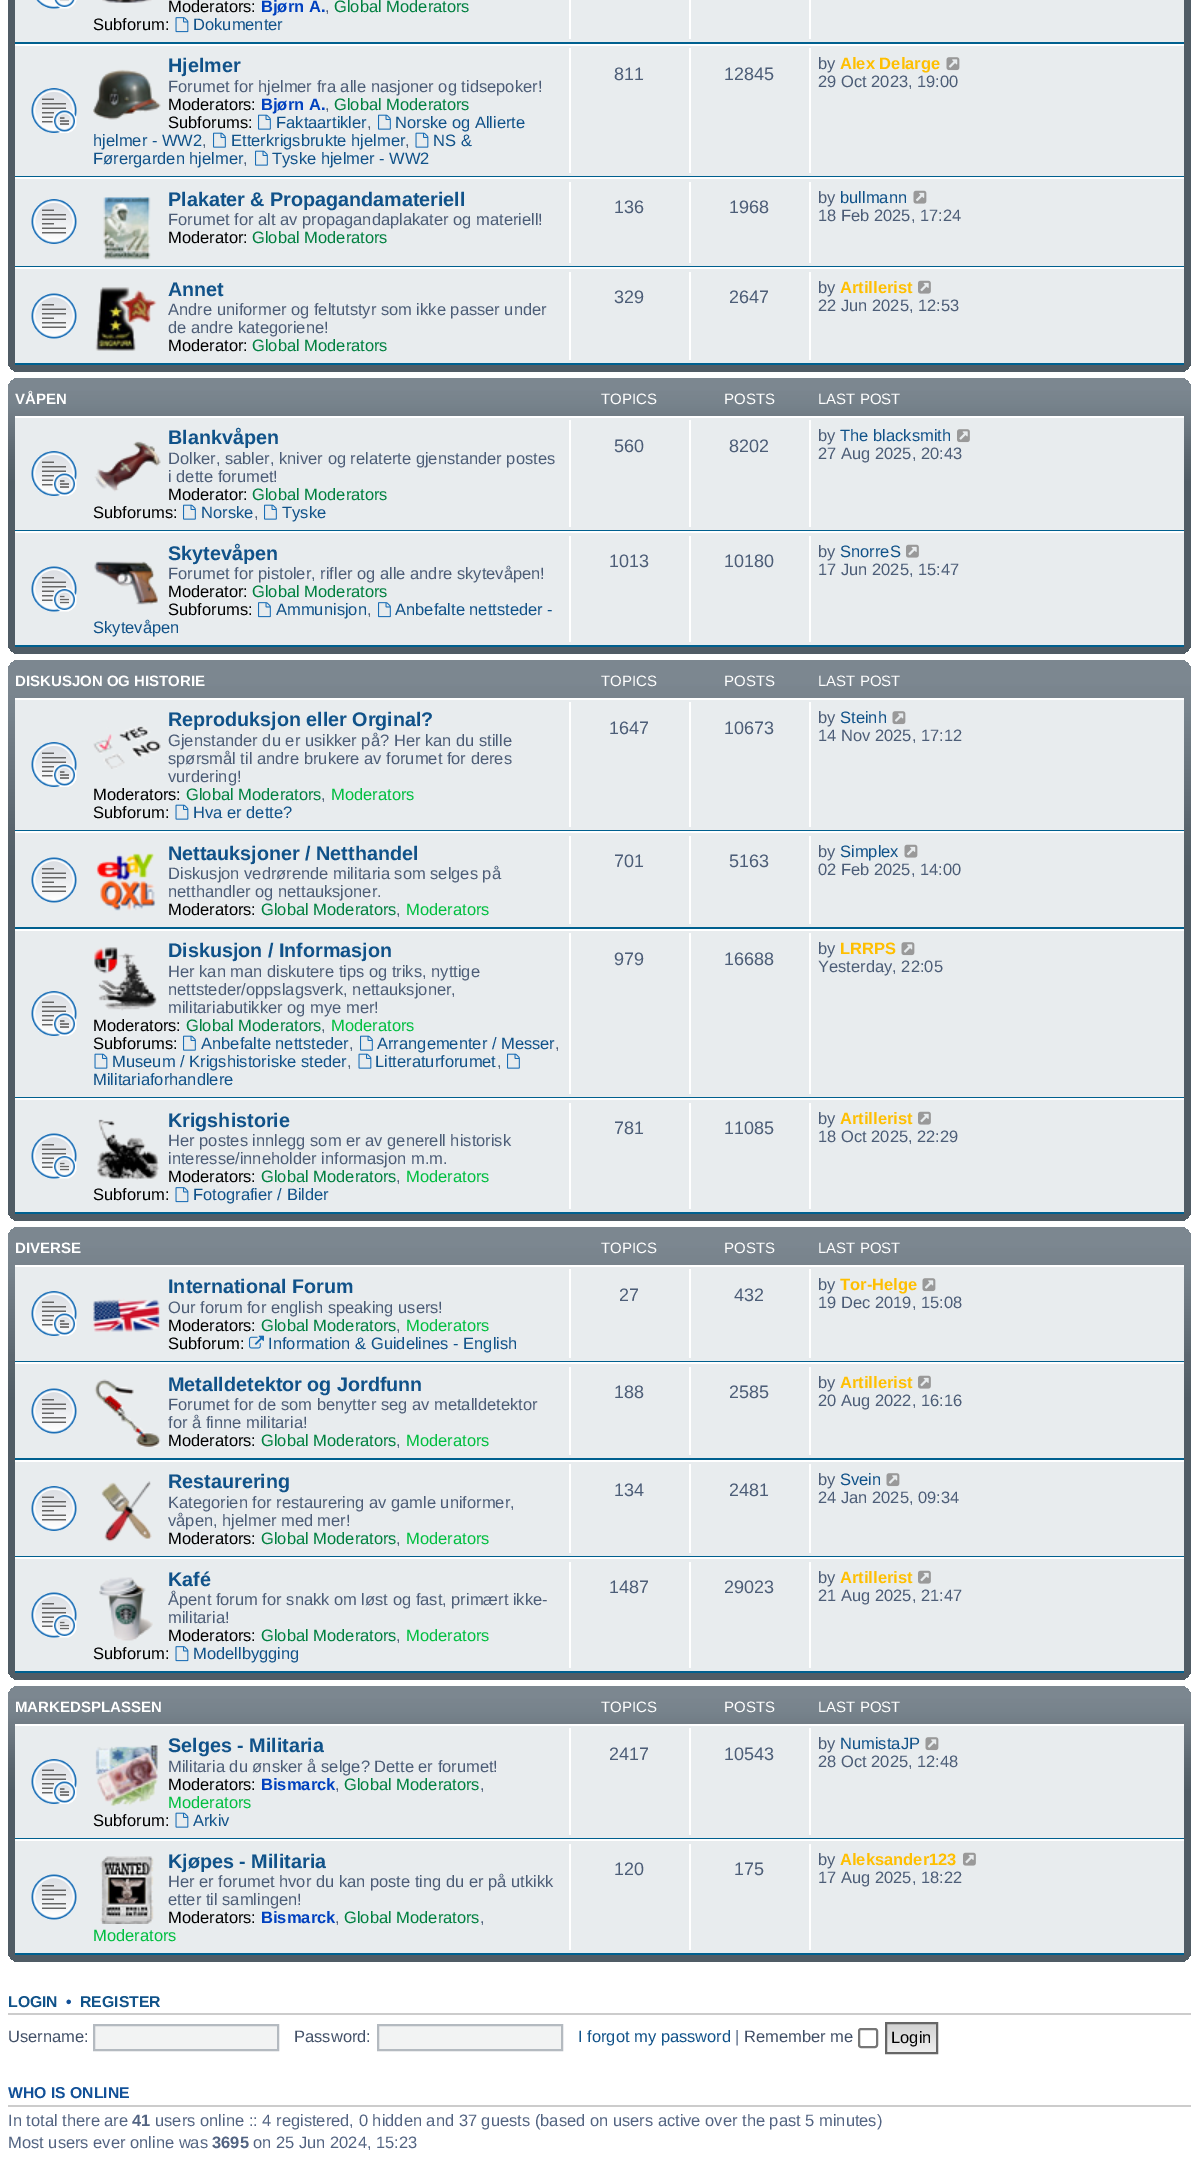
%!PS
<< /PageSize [1198 2159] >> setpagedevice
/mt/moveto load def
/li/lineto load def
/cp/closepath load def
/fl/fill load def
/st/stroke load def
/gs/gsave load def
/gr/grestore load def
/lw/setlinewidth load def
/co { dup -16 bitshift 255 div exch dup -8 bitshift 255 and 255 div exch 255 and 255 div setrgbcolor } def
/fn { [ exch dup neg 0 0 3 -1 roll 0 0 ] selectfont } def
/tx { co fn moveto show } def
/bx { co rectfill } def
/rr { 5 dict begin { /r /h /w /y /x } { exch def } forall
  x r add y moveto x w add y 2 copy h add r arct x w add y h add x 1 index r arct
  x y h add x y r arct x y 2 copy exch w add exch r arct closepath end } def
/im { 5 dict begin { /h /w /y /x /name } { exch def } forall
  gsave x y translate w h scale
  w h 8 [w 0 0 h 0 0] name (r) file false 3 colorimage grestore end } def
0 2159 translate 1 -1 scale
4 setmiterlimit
0 0 1198 2159 16#FFFFFF bx
gs 8 -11 1183 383 11 rr clip newpath
<< /ShadingType 2 /ColorSpace /DeviceRGB /Coords [599 -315 599 372] /Extend [true true] /Function << /FunctionType 3 /Domain [0 1] /Functions [<< /FunctionType 2 /Domain [0 1] /C0 [.486 .533 .569] /C1 [.486 .529 .565] /N 1 >> << /FunctionType 2 /Domain [0 1] /C0 [.486 .529 .565] /C1 [.463 .51 .545] /N 1 >> << /FunctionType 2 /Domain [0 1] /C0 [.463 .51 .545] /C1 [.357 .4 .435] /N 1 >> << /FunctionType 2 /Domain [0 1] /C0 [.357 .4 .435] /C1 [.314 .361 .396] /N 1 >> << /FunctionType 2 /Domain [0 1] /C0 [.314 .361 .396] /C1 [.314 .361 .396] /N 1 >>] /Bounds [.04 .1 .29 .38] /Encode [0 1 0 1 0 1 0 1 0 1] >> >> shfill gr
15 0 1169 42 16#E8ECEE bx
15 42 1169 2 16#00608F bx
(media/1.raw) 36 0 41 9 im
(media/2.raw) 102 0 50 3 im
(media/3.raw) 175 17 14 16 im
569 0 2 39 16#FFFFFF bx
689 0 2 39 16#FFFFFF bx
809 0 2 39 16#FFFFFF bx
15 46 1169 130 16#E8ECEE bx
15 44 1169 2 16#FFFFFF bx
15 176 1169 1 16#00608F bx
(media/4.raw) 31 88 46 45 im
(media/5.raw) 93 69 68 51 im
(media/6.raw) 378 114 13 16 im
(media/6.raw) 258 114 13 16 im
(media/7.raw) 415 132 14 16 im
(media/6.raw) 213 132 13 16 im
(media/6.raw) 255 150 13 16 im
569 48 2 125 16#FFFFFF bx
689 48 2 125 16#FFFFFF bx
809 48 2 125 16#FFFFFF bx
(media/8.raw) 946 57 14 14 im
15 179 1169 87 16#E8ECEE bx
15 177 1169 2 16#FFFFFF bx
15 266 1169 1 16#00608F bx
(media/9.raw) 31 199 46 45 im
(media/10.raw) 103 197 48 63 im
569 182 2 81 16#FFFFFF bx
689 182 2 81 16#FFFFFF bx
809 182 2 81 16#FFFFFF bx
(media/11.raw) 913 190 14 14 im
15 269 1169 94 16#E8ECEE bx
15 267 1169 2 16#FFFFFF bx
15 363 1169 2 16#00608F bx
(media/12.raw) 31 293 46 46 im
(media/13.raw) 95 287 62 64 im
569 272 2 88 16#FFFFFF bx
689 272 2 88 16#FFFFFF bx
809 272 2 88 16#FFFFFF bx
(media/14.raw) 918 280 13 14 im
gs 8 378 1183 276 11 rr clip newpath
<< /ShadingType 2 /ColorSpace /DeviceRGB /Coords [599 378 599 654] /Extend [true true] /Function << /FunctionType 3 /Domain [0 1] /Functions [<< /FunctionType 2 /Domain [0 1] /C0 [.486 .533 .569] /C1 [.486 .529 .565] /N 1 >> << /FunctionType 2 /Domain [0 1] /C0 [.486 .529 .565] /C1 [.463 .51 .545] /N 1 >> << /FunctionType 2 /Domain [0 1] /C0 [.463 .51 .545] /C1 [.357 .4 .435] /N 1 >> << /FunctionType 2 /Domain [0 1] /C0 [.357 .4 .435] /C1 [.314 .361 .396] /N 1 >> << /FunctionType 2 /Domain [0 1] /C0 [.314 .361 .396] /C1 [.314 .361 .396] /N 1 >>] /Bounds [.04 .1 .29 .38] /Encode [0 1 0 1 0 1 0 1 0 1] >> >> shfill gr
15 418 1169 112 16#E8ECEE bx
15 416 1169 2 16#FFFFFF bx
15 530 1169 1 16#00608F bx
(media/4.raw) 31 451 46 45 im
(media/15.raw) 94 441 67 51 im
(media/6.raw) 183 504 13 16 im
(media/6.raw) 264 504 13 16 im
569 420 2 107 16#FFFFFF bx
689 420 2 107 16#FFFFFF bx
809 420 2 107 16#FFFFFF bx
(media/16.raw) 957 429 13 14 im
15 533 1169 112 16#E8ECEE bx
15 531 1169 2 16#FFFFFF bx
15 645 1169 2 16#00608F bx
(media/17.raw) 31 566 46 46 im
(media/18.raw) 94 561 64 44 im
(media/19.raw) 378 602 13 16 im
(media/19.raw) 258 602 13 16 im
569 536 2 106 16#FFFFFF bx
689 536 2 106 16#FFFFFF bx
809 536 2 106 16#FFFFFF bx
(media/14.raw) 906 544 13 14 im
gs 8 660 1183 561 11 rr clip newpath
<< /ShadingType 2 /ColorSpace /DeviceRGB /Coords [599 660 599 1221] /Extend [true true] /Function << /FunctionType 3 /Domain [0 1] /Functions [<< /FunctionType 2 /Domain [0 1] /C0 [.486 .533 .569] /C1 [.486 .529 .565] /N 1 >> << /FunctionType 2 /Domain [0 1] /C0 [.486 .529 .565] /C1 [.463 .51 .545] /N 1 >> << /FunctionType 2 /Domain [0 1] /C0 [.463 .51 .545] /C1 [.357 .4 .435] /N 1 >> << /FunctionType 2 /Domain [0 1] /C0 [.357 .4 .435] /C1 [.314 .361 .396] /N 1 >> << /FunctionType 2 /Domain [0 1] /C0 [.314 .361 .396] /C1 [.314 .361 .396] /N 1 >>] /Bounds [.04 .1 .29 .38] /Encode [0 1 0 1 0 1 0 1 0 1] >> >> shfill gr
15 700 1169 130 16#E8ECEE bx
15 698 1169 2 16#FFFFFF bx
15 830 1169 1 16#00608F bx
(media/4.raw) 31 742 46 45 im
(media/20.raw) 93 725 68 44 im
(media/7.raw) 175 804 14 16 im
569 702 2 125 16#FFFFFF bx
689 702 2 125 16#FFFFFF bx
809 702 2 125 16#FFFFFF bx
(media/8.raw) 892 711 14 14 im
15 833 1169 94 16#E8ECEE bx
15 831 1169 2 16#FFFFFF bx
15 927 1169 2 16#00608F bx
(media/12.raw) 31 857 46 46 im
(media/21.raw) 96 853 60 58 im
569 836 2 88 16#FFFFFF bx
689 836 2 88 16#FFFFFF bx
809 836 2 88 16#FFFFFF bx
(media/11.raw) 904 844 14 14 im
15 931 1169 166 16#E8ECEE bx
15 929 1169 2 16#FFFFFF bx
15 1097 1169 1 16#00608F bx
(media/4.raw) 31 991 46 45 im
(media/22.raw) 94 947 63 64 im
(media/6.raw) 183 1035 13 16 im
(media/6.raw) 360 1035 13 16 im
(media/7.raw) 94 1053 14 16 im
(media/7.raw) 358 1053 14 16 im
(media/6.raw) 507 1053 13 16 im
569 933 2 161 16#FFFFFF bx
689 933 2 161 16#FFFFFF bx
809 933 2 161 16#FFFFFF bx
(media/8.raw) 901 942 14 14 im
15 1100 1169 112 16#E8ECEE bx
15 1098 1169 2 16#FFFFFF bx
15 1212 1169 2 16#00608F bx
(media/17.raw) 31 1133 46 46 im
(media/23.raw) 97 1119 63 61 im
(media/3.raw) 175 1187 14 16 im
569 1103 2 106 16#FFFFFF bx
689 1103 2 106 16#FFFFFF bx
809 1103 2 106 16#FFFFFF bx
(media/14.raw) 918 1111 13 14 im
gs 8 1227 1183 453 11 rr clip newpath
<< /ShadingType 2 /ColorSpace /DeviceRGB /Coords [599 1227 599 1680] /Extend [true true] /Function << /FunctionType 3 /Domain [0 1] /Functions [<< /FunctionType 2 /Domain [0 1] /C0 [.486 .533 .569] /C1 [.486 .529 .565] /N 1 >> << /FunctionType 2 /Domain [0 1] /C0 [.486 .529 .565] /C1 [.463 .51 .545] /N 1 >> << /FunctionType 2 /Domain [0 1] /C0 [.463 .51 .545] /C1 [.357 .4 .435] /N 1 >> << /FunctionType 2 /Domain [0 1] /C0 [.357 .4 .435] /C1 [.314 .361 .396] /N 1 >> << /FunctionType 2 /Domain [0 1] /C0 [.314 .361 .396] /C1 [.314 .361 .396] /N 1 >>] /Bounds [.04 .1 .29 .38] /Encode [0 1 0 1 0 1 0 1 0 1] >> >> shfill gr
15 1267 1169 94 16#E8ECEE bx
15 1265 1169 2 16#FFFFFF bx
15 1361 1169 1 16#00608F bx
(media/4.raw) 31 1291 46 45 im
(media/24.raw) 93 1298 67 34 im
(media/25.raw) 249 1335 15 14 im
569 1269 2 89 16#FFFFFF bx
689 1269 2 89 16#FFFFFF bx
809 1269 2 89 16#FFFFFF bx
(media/8.raw) 922 1278 14 14 im
15 1364 1169 94 16#E8ECEE bx
15 1362 1169 2 16#FFFFFF bx
15 1458 1169 2 16#00608F bx
(media/12.raw) 31 1388 46 46 im
(media/26.raw) 94 1379 67 68 im
569 1367 2 88 16#FFFFFF bx
689 1367 2 88 16#FFFFFF bx
809 1367 2 88 16#FFFFFF bx
(media/14.raw) 918 1375 13 14 im
15 1462 1169 94 16#E8ECEE bx
15 1460 1169 2 16#FFFFFF bx
15 1556 1169 1 16#00608F bx
(media/9.raw) 31 1486 46 45 im
(media/27.raw) 101 1481 51 61 im
569 1464 2 89 16#FFFFFF bx
689 1464 2 89 16#FFFFFF bx
809 1464 2 89 16#FFFFFF bx
(media/8.raw) 886 1473 14 14 im
15 1559 1169 112 16#E8ECEE bx
15 1557 1169 2 16#FFFFFF bx
15 1671 1169 2 16#00608F bx
(media/17.raw) 31 1592 46 46 im
(media/28.raw) 99 1577 54 64 im
(media/3.raw) 175 1646 14 16 im
569 1562 2 106 16#FFFFFF bx
689 1562 2 106 16#FFFFFF bx
809 1562 2 106 16#FFFFFF bx
(media/14.raw) 918 1570 13 14 im
gs 8 1686 1183 276 11 rr clip newpath
<< /ShadingType 2 /ColorSpace /DeviceRGB /Coords [599 1686 599 1962] /Extend [true true] /Function << /FunctionType 3 /Domain [0 1] /Functions [<< /FunctionType 2 /Domain [0 1] /C0 [.486 .533 .569] /C1 [.486 .529 .565] /N 1 >> << /FunctionType 2 /Domain [0 1] /C0 [.486 .529 .565] /C1 [.463 .51 .545] /N 1 >> << /FunctionType 2 /Domain [0 1] /C0 [.463 .51 .545] /C1 [.357 .4 .435] /N 1 >> << /FunctionType 2 /Domain [0 1] /C0 [.357 .4 .435] /C1 [.314 .361 .396] /N 1 >> << /FunctionType 2 /Domain [0 1] /C0 [.314 .361 .396] /C1 [.314 .361 .396] /N 1 >>] /Bounds [.04 .1 .29 .38] /Encode [0 1 0 1 0 1 0 1 0 1] >> >> shfill gr
15 1726 1169 112 16#E8ECEE bx
15 1724 1169 2 16#FFFFFF bx
15 1838 1169 1 16#00608F bx
(media/4.raw) 31 1759 46 45 im
(media/29.raw) 95 1745 63 61 im
(media/7.raw) 175 1812 14 16 im
569 1728 2 107 16#FFFFFF bx
689 1728 2 107 16#FFFFFF bx
809 1728 2 107 16#FFFFFF bx
(media/8.raw) 925 1737 14 14 im
15 1841 1169 112 16#E8ECEE bx
15 1839 1169 2 16#FFFFFF bx
15 1953 1169 2 16#00608F bx
(media/12.raw) 31 1874 46 46 im
(media/30.raw) 100 1856 54 68 im
569 1844 2 106 16#FFFFFF bx
689 1844 2 106 16#FFFFFF bx
809 1844 2 106 16#FFFFFF bx
(media/14.raw) 963 1852 13 14 im
8 2013 1183 2 16#CCCCCC bx
16#F2F3F3 co
94 2025 mt 278 2025 li 278 2050 li 94 2050 li cp gs fl gr
16#B4BAC0 co
2 lw
st
16#F2F3F3 co
378 2025 mt 562 2025 li 562 2050 li 378 2050 li cp gs fl gr
16#B4BAC0 co
st
16#767676 co
859 2029 18 18 2 rr st
gs 887 2024 mt 936 2024 li 936 2052 li 887 2052 li cp clip newpath
<< /ShadingType 2 /ColorSpace /DeviceRGB /Coords [911 2024 911 2052] /Extend [true true] /Function << /FunctionType 2 /Domain [0 1] /C0 [.824 .824 .824] /C1 [.937 .937 .937] /N 1 >> >> shfill gr
16#666666 co
886 2023 51 30 rectstroke
8 2105 1183 2 16#CCCCCC bx
(Moderators:) 168 12 /LiberationSans-Regular 16.5 16#000000 tx
(Bjørn A.) 261 12 /LiberationSans-Bold 16.5 16#0040BF tx
(,) 325 12 /LiberationSans-Regular 16.5 16#4C5D77 tx
(Global Moderators) 334 12 /LiberationSans-Regular 16.5 16#008040 tx
(Subforum:) 93 30 /LiberationSans-Regular 16.5 16#000000 tx
(Dokumenter) 193 30 /LiberationSans-Regular 16.5 16#105289 tx
(Hjelmer) 168 72 /LiberationSans-Bold 19.75 16#105289 tx
(Forumet for hjelmer fra alle nasjoner og tidsepoker!) 168 92 /LiberationSans-Regular 16.5 16#4C5D77 tx
(Moderators:) 168 110 /LiberationSans-Regular 16.5 16#000000 tx
(Bjørn A.) 261 110 /LiberationSans-Bold 16.5 16#0040BF tx
(,) 325 110 /LiberationSans-Regular 16.5 16#4C5D77 tx
(Global Moderators) 334 110 /LiberationSans-Regular 16.5 16#008040 tx
(Norske og Allierte) 395 128 /LiberationSans-Regular 16.5 16#105289 tx
(hjelmer - WW2) 93 146 /LiberationSans-Regular 16.5 16#105289 tx
(Subforums:) 168 128 /LiberationSans-Regular 16.5 16#000000 tx
(Faktaartikler) 276 128 /LiberationSans-Regular 16.5 16#105289 tx
(,) 367 128 /LiberationSans-Regular 16.5 16#4C5D77 tx
(NS &) 433 146 /LiberationSans-Regular 16.5 16#105289 tx
(Førergarden hjelmer) 93 164 /LiberationSans-Regular 16.5 16#105289 tx
(,) 202 146 /LiberationSans-Regular 16.5 16#4C5D77 tx
(Etterkrigsbrukte hjelmer) 231 146 /LiberationSans-Regular 16.5 16#105289 tx
(,) 405 146 /LiberationSans-Regular 16.5 16#4C5D77 tx
(,) 243 164 /LiberationSans-Regular 16.5 16#4C5D77 tx
(Tyske hjelmer - WW2) 272 164 /LiberationSans-Regular 16.5 16#105289 tx
(811) 614 80 /LiberationSans-Regular 18 16#4C5D77 tx
(12845) 724 80 /LiberationSans-Regular 18 16#4C5D77 tx
(by) 818 69 /LiberationSans-Regular 16.5 16#4C5D77 tx
(Alex Delarge) 840 69 /LiberationSans-Bold 16.5 16#FFBF00 tx
(29 Oct 2023, 19:00) 818 87 /LiberationSans-Regular 16.5 16#4C5D77 tx
(Plakater & Propagandamateriell) 168 206 /LiberationSans-Bold 19.75 16#105289 tx
(Forumet for alt av propagandaplakater og materiell!) 168 225 /LiberationSans-Regular 16.5 16#4C5D77 tx
(Moderator:) 168 243 /LiberationSans-Regular 16.5 16#000000 tx
(Global Moderators) 252 243 /LiberationSans-Regular 16.5 16#008040 tx
(136) 614 213 /LiberationSans-Regular 18 16#4C5D77 tx
(1968) 729 213 /LiberationSans-Regular 18 16#4C5D77 tx
(by) 818 203 /LiberationSans-Regular 16.5 16#4C5D77 tx
(bullmann) 840 203 /LiberationSans-Regular 16.5 16#105289 tx
(18 Feb 2025, 17:24) 818 221 /LiberationSans-Regular 16.5 16#4C5D77 tx
(Annet) 168 296 /LiberationSans-Bold 19.75 16#105289 tx
(Andre uniformer og feltutstyr som ikke passer under) 168 315 /LiberationSans-Regular 16.5 16#4C5D77 tx
(de andre kategoriene!) 168 333 /LiberationSans-Regular 16.5 16#4C5D77 tx
(Moderator:) 168 351 /LiberationSans-Regular 16.5 16#000000 tx
(Global Moderators) 252 351 /LiberationSans-Regular 16.5 16#008040 tx
(329) 614 303 /LiberationSans-Regular 18 16#4C5D77 tx
(2647) 729 303 /LiberationSans-Regular 18 16#4C5D77 tx
(by) 818 293 /LiberationSans-Regular 16.5 16#4C5D77 tx
(Artillerist) 840 293 /LiberationSans-Bold 16.5 16#FFBF00 tx
(22 Jun 2025, 12:53) 818 311 /LiberationSans-Regular 16.5 16#4C5D77 tx
(VÅPEN) 15 404 /LiberationSans-Bold 15 16#FFFFFF tx
(TOPICS) 601 404 /LiberationSans-Regular 15 16#FFFFFF tx
(POSTS) 724 404 /LiberationSans-Regular 15 16#FFFFFF tx
(LAST POST) 818 404 /LiberationSans-Regular 15 16#FFFFFF tx
(Blankvåpen) 168 444 /LiberationSans-Bold 19.75 16#105289 tx
(Dolker, sabler, kniver og relaterte gjenstander postes) 168 464 /LiberationSans-Regular 16.5 16#4C5D77 tx
(i dette forumet!) 168 482 /LiberationSans-Regular 16.5 16#4C5D77 tx
(Moderator:) 168 500 /LiberationSans-Regular 16.5 16#000000 tx
(Global Moderators) 252 500 /LiberationSans-Regular 16.5 16#008040 tx
(Subforums:) 93 518 /LiberationSans-Regular 16.5 16#000000 tx
(Norske) 201 518 /LiberationSans-Regular 16.5 16#105289 tx
(,) 254 518 /LiberationSans-Regular 16.5 16#4C5D77 tx
(Tyske) 282 518 /LiberationSans-Regular 16.5 16#105289 tx
(560) 614 452 /LiberationSans-Regular 18 16#4C5D77 tx
(8202) 729 452 /LiberationSans-Regular 18 16#4C5D77 tx
(by) 818 441 /LiberationSans-Regular 16.5 16#4C5D77 tx
(The blacksmith) 840 441 /LiberationSans-Regular 16.5 16#105289 tx
(27 Aug 2025, 20:43) 818 459 /LiberationSans-Regular 16.5 16#4C5D77 tx
(Skytevåpen) 168 560 /LiberationSans-Bold 19.75 16#105289 tx
(Forumet for pistoler, rifler og alle andre skytevåpen!) 168 579 /LiberationSans-Regular 16.5 16#4C5D77 tx
(Moderator:) 168 597 /LiberationSans-Regular 16.5 16#000000 tx
(Global Moderators) 252 597 /LiberationSans-Regular 16.5 16#008040 tx
(Anbefalte nettsteder -) 395 615 /LiberationSans-Regular 16.5 16#105289 tx
(Skytevåpen) 93 633 /LiberationSans-Regular 16.5 16#105289 tx
(Subforums:) 168 615 /LiberationSans-Regular 16.5 16#000000 tx
(Ammunisjon) 276 615 /LiberationSans-Regular 16.5 16#105289 tx
(,) 367 615 /LiberationSans-Regular 16.5 16#4C5D77 tx
(1013) 609 567 /LiberationSans-Regular 18 16#4C5D77 tx
(10180) 724 567 /LiberationSans-Regular 18 16#4C5D77 tx
(by) 818 557 /LiberationSans-Regular 16.5 16#4C5D77 tx
(SnorreS) 840 557 /LiberationSans-Regular 16.5 16#105289 tx
(17 Jun 2025, 15:47) 818 575 /LiberationSans-Regular 16.5 16#4C5D77 tx
(DISKUSJON OG HISTORIE) 15 686 /LiberationSans-Bold 15 16#FFFFFF tx
(TOPICS) 601 686 /LiberationSans-Regular 15 16#FFFFFF tx
(POSTS) 724 686 /LiberationSans-Regular 15 16#FFFFFF tx
(LAST POST) 818 686 /LiberationSans-Regular 15 16#FFFFFF tx
(Reproduksjon eller Orginal?) 168 726 /LiberationSans-Bold 19.75 16#105289 tx
(Gjenstander du er usikker på? Her kan du stille) 168 746 /LiberationSans-Regular 16.5 16#4C5D77 tx
(spørsmål til andre brukere av forumet for deres) 168 764 /LiberationSans-Regular 16.5 16#4C5D77 tx
(vurdering!) 168 782 /LiberationSans-Regular 16.5 16#4C5D77 tx
(Moderators:) 93 800 /LiberationSans-Regular 16.5 16#000000 tx
(Global Moderators) 186 800 /LiberationSans-Regular 16.5 16#008040 tx
(,) 321 800 /LiberationSans-Regular 16.5 16#4C5D77 tx
(Moderators) 331 800 /LiberationSans-Regular 16.5 16#00BF40 tx
(Subforum:) 93 818 /LiberationSans-Regular 16.5 16#000000 tx
(Hva er dette?) 193 818 /LiberationSans-Regular 16.5 16#105289 tx
(1647) 609 734 /LiberationSans-Regular 18 16#4C5D77 tx
(10673) 724 734 /LiberationSans-Regular 18 16#4C5D77 tx
(by) 818 723 /LiberationSans-Regular 16.5 16#4C5D77 tx
(Steinh) 840 723 /LiberationSans-Regular 16.5 16#105289 tx
(14 Nov 2025, 17:12) 818 741 /LiberationSans-Regular 16.5 16#4C5D77 tx
(Nettauksjoner / Netthandel) 168 860 /LiberationSans-Bold 19.75 16#105289 tx
(Diskusjon vedrørende militaria som selges på) 168 879 /LiberationSans-Regular 16.5 16#4C5D77 tx
(netthandler og nettauksjoner.) 168 897 /LiberationSans-Regular 16.5 16#4C5D77 tx
(Moderators:) 168 915 /LiberationSans-Regular 16.5 16#000000 tx
(Global Moderators) 261 915 /LiberationSans-Regular 16.5 16#008040 tx
(,) 396 915 /LiberationSans-Regular 16.5 16#4C5D77 tx
(Moderators) 406 915 /LiberationSans-Regular 16.5 16#00BF40 tx
(701) 614 867 /LiberationSans-Regular 18 16#4C5D77 tx
(5163) 729 867 /LiberationSans-Regular 18 16#4C5D77 tx
(by) 818 857 /LiberationSans-Regular 16.5 16#4C5D77 tx
(Simplex) 840 857 /LiberationSans-Regular 16.5 16#105289 tx
(02 Feb 2025, 14:00) 818 875 /LiberationSans-Regular 16.5 16#4C5D77 tx
(Diskusjon / Informasjon) 168 957 /LiberationSans-Bold 19.75 16#105289 tx
(Her kan man diskutere tips og triks, nyttige) 168 977 /LiberationSans-Regular 16.5 16#4C5D77 tx
(nettsteder/oppslagsverk, nettauksjoner,) 168 995 /LiberationSans-Regular 16.5 16#4C5D77 tx
(militariabutikker og mye mer!) 168 1013 /LiberationSans-Regular 16.5 16#4C5D77 tx
(Moderators:) 93 1031 /LiberationSans-Regular 16.5 16#000000 tx
(Global Moderators) 186 1031 /LiberationSans-Regular 16.5 16#008040 tx
(,) 321 1031 /LiberationSans-Regular 16.5 16#4C5D77 tx
(Moderators) 331 1031 /LiberationSans-Regular 16.5 16#00BF40 tx
(Subforums:) 93 1049 /LiberationSans-Regular 16.5 16#000000 tx
(Anbefalte nettsteder) 201 1049 /LiberationSans-Regular 16.5 16#105289 tx
(,) 349 1049 /LiberationSans-Regular 16.5 16#4C5D77 tx
(Arrangementer / Messer) 377 1049 /LiberationSans-Regular 16.5 16#105289 tx
(,) 555 1049 /LiberationSans-Regular 16.5 16#4C5D77 tx
(Museum / Krigshistoriske steder) 112 1067 /LiberationSans-Regular 16.5 16#105289 tx
(,) 347 1067 /LiberationSans-Regular 16.5 16#4C5D77 tx
(Litteraturforumet) 375 1067 /LiberationSans-Regular 16.5 16#105289 tx
(,) 497 1067 /LiberationSans-Regular 16.5 16#4C5D77 tx
(Militariaforhandlere) 93 1085 /LiberationSans-Regular 16.5 16#105289 tx
(979) 614 965 /LiberationSans-Regular 18 16#4C5D77 tx
(16688) 724 965 /LiberationSans-Regular 18 16#4C5D77 tx
(by) 818 954 /LiberationSans-Regular 16.5 16#4C5D77 tx
(LRRPS) 840 954 /LiberationSans-Bold 16.5 16#FFBF00 tx
(Yesterday, 22:05) 818 972 /LiberationSans-Regular 16.5 16#4C5D77 tx
(Krigshistorie) 168 1127 /LiberationSans-Bold 19.75 16#105289 tx
(Her postes innlegg som er av generell historisk) 168 1146 /LiberationSans-Regular 16.5 16#4C5D77 tx
(interesse/inneholder informasjon m.m.) 168 1164 /LiberationSans-Regular 16.5 16#4C5D77 tx
(Moderators:) 168 1182 /LiberationSans-Regular 16.5 16#000000 tx
(Global Moderators) 261 1182 /LiberationSans-Regular 16.5 16#008040 tx
(,) 396 1182 /LiberationSans-Regular 16.5 16#4C5D77 tx
(Moderators) 406 1182 /LiberationSans-Regular 16.5 16#00BF40 tx
(Subforum:) 93 1200 /LiberationSans-Regular 16.5 16#000000 tx
(Fotografier / Bilder) 193 1200 /LiberationSans-Regular 16.5 16#105289 tx
(781) 614 1134 /LiberationSans-Regular 18 16#4C5D77 tx
(11085) 724 1134 /LiberationSans-Regular 18 16#4C5D77 tx
(by) 818 1124 /LiberationSans-Regular 16.5 16#4C5D77 tx
(Artillerist) 840 1124 /LiberationSans-Bold 16.5 16#FFBF00 tx
(18 Oct 2025, 22:29) 818 1142 /LiberationSans-Regular 16.5 16#4C5D77 tx
(DIVERSE) 15 1253 /LiberationSans-Bold 15 16#FFFFFF tx
(TOPICS) 601 1253 /LiberationSans-Regular 15 16#FFFFFF tx
(POSTS) 724 1253 /LiberationSans-Regular 15 16#FFFFFF tx
(LAST POST) 818 1253 /LiberationSans-Regular 15 16#FFFFFF tx
(International Forum) 168 1293 /LiberationSans-Bold 19.75 16#105289 tx
(Our forum for english speaking users!) 168 1313 /LiberationSans-Regular 16.5 16#4C5D77 tx
(Moderators:) 168 1331 /LiberationSans-Regular 16.5 16#000000 tx
(Global Moderators) 261 1331 /LiberationSans-Regular 16.5 16#008040 tx
(,) 396 1331 /LiberationSans-Regular 16.5 16#4C5D77 tx
(Moderators) 406 1331 /LiberationSans-Regular 16.5 16#00BF40 tx
(Subforum:) 168 1349 /LiberationSans-Regular 16.5 16#000000 tx
(Information & Guidelines - English) 268 1349 /LiberationSans-Regular 16.5 16#105289 tx
(27) 619 1301 /LiberationSans-Regular 18 16#4C5D77 tx
(432) 734 1301 /LiberationSans-Regular 18 16#4C5D77 tx
(by) 818 1290 /LiberationSans-Regular 16.5 16#4C5D77 tx
(Tor-Helge) 840 1290 /LiberationSans-Bold 16.5 16#FFBF00 tx
(19 Dec 2019, 15:08) 818 1308 /LiberationSans-Regular 16.5 16#4C5D77 tx
(Metalldetektor og Jordfunn) 168 1391 /LiberationSans-Bold 19.75 16#105289 tx
(Forumet for de som benytter seg av metalldetektor) 168 1410 /LiberationSans-Regular 16.5 16#4C5D77 tx
(for å finne militaria!) 168 1428 /LiberationSans-Regular 16.5 16#4C5D77 tx
(Moderators:) 168 1446 /LiberationSans-Regular 16.5 16#000000 tx
(Global Moderators) 261 1446 /LiberationSans-Regular 16.5 16#008040 tx
(,) 396 1446 /LiberationSans-Regular 16.5 16#4C5D77 tx
(Moderators) 406 1446 /LiberationSans-Regular 16.5 16#00BF40 tx
(188) 614 1398 /LiberationSans-Regular 18 16#4C5D77 tx
(2585) 729 1398 /LiberationSans-Regular 18 16#4C5D77 tx
(by) 818 1388 /LiberationSans-Regular 16.5 16#4C5D77 tx
(Artillerist) 840 1388 /LiberationSans-Bold 16.5 16#FFBF00 tx
(20 Aug 2022, 16:16) 818 1406 /LiberationSans-Regular 16.5 16#4C5D77 tx
(Restaurering) 168 1488 /LiberationSans-Bold 19.75 16#105289 tx
(Kategorien for restaurering av gamle uniformer,) 168 1508 /LiberationSans-Regular 16.5 16#4C5D77 tx
(våpen, hjelmer med mer!) 168 1526 /LiberationSans-Regular 16.5 16#4C5D77 tx
(Moderators:) 168 1544 /LiberationSans-Regular 16.5 16#000000 tx
(Global Moderators) 261 1544 /LiberationSans-Regular 16.5 16#008040 tx
(,) 396 1544 /LiberationSans-Regular 16.5 16#4C5D77 tx
(Moderators) 406 1544 /LiberationSans-Regular 16.5 16#00BF40 tx
(134) 614 1496 /LiberationSans-Regular 18 16#4C5D77 tx
(2481) 729 1496 /LiberationSans-Regular 18 16#4C5D77 tx
(by) 818 1485 /LiberationSans-Regular 16.5 16#4C5D77 tx
(Svein) 840 1485 /LiberationSans-Regular 16.5 16#105289 tx
(24 Jan 2025, 09:34) 818 1503 /LiberationSans-Regular 16.5 16#4C5D77 tx
(Kafé) 168 1586 /LiberationSans-Bold 19.75 16#105289 tx
(Åpent forum for snakk om løst og fast, primært ikke-) 168 1605 /LiberationSans-Regular 16.5 16#4C5D77 tx
(militaria!) 168 1623 /LiberationSans-Regular 16.5 16#4C5D77 tx
(Moderators:) 168 1641 /LiberationSans-Regular 16.5 16#000000 tx
(Global Moderators) 261 1641 /LiberationSans-Regular 16.5 16#008040 tx
(,) 396 1641 /LiberationSans-Regular 16.5 16#4C5D77 tx
(Moderators) 406 1641 /LiberationSans-Regular 16.5 16#00BF40 tx
(Subforum:) 93 1659 /LiberationSans-Regular 16.5 16#000000 tx
(Modellbygging) 193 1659 /LiberationSans-Regular 16.5 16#105289 tx
(1487) 609 1593 /LiberationSans-Regular 18 16#4C5D77 tx
(29023) 724 1593 /LiberationSans-Regular 18 16#4C5D77 tx
(by) 818 1583 /LiberationSans-Regular 16.5 16#4C5D77 tx
(Artillerist) 840 1583 /LiberationSans-Bold 16.5 16#FFBF00 tx
(21 Aug 2025, 21:47) 818 1601 /LiberationSans-Regular 16.5 16#4C5D77 tx
(MARKEDSPLASSEN) 15 1712 /LiberationSans-Bold 15 16#FFFFFF tx
(TOPICS) 601 1712 /LiberationSans-Regular 15 16#FFFFFF tx
(POSTS) 724 1712 /LiberationSans-Regular 15 16#FFFFFF tx
(LAST POST) 818 1712 /LiberationSans-Regular 15 16#FFFFFF tx
(Selges - Militaria) 168 1752 /LiberationSans-Bold 19.75 16#105289 tx
(Militaria du ønsker å selge? Dette er forumet!) 168 1772 /LiberationSans-Regular 16.5 16#4C5D77 tx
(Moderators:) 168 1790 /LiberationSans-Regular 16.5 16#000000 tx
(Bismarck) 261 1790 /LiberationSans-Bold 16.5 16#0040BF tx
(,) 335 1790 /LiberationSans-Regular 16.5 16#4C5D77 tx
(Global Moderators) 344 1790 /LiberationSans-Regular 16.5 16#008040 tx
(,) 480 1790 /LiberationSans-Regular 16.5 16#4C5D77 tx
(Moderators) 168 1808 /LiberationSans-Regular 16.5 16#00BF40 tx
(Subforum:) 93 1826 /LiberationSans-Regular 16.5 16#000000 tx
(Arkiv) 193 1826 /LiberationSans-Regular 16.5 16#105289 tx
(2417) 609 1760 /LiberationSans-Regular 18 16#4C5D77 tx
(10543) 724 1760 /LiberationSans-Regular 18 16#4C5D77 tx
(by) 818 1749 /LiberationSans-Regular 16.5 16#4C5D77 tx
(NumistaJP) 840 1749 /LiberationSans-Regular 16.5 16#105289 tx
(28 Oct 2025, 12:48) 818 1767 /LiberationSans-Regular 16.5 16#4C5D77 tx
(Kjøpes - Militaria) 168 1868 /LiberationSans-Bold 19.75 16#105289 tx
(Her er forumet hvor du kan poste ting du er på utkikk) 168 1887 /LiberationSans-Regular 16.5 16#4C5D77 tx
(etter til samlingen!) 168 1905 /LiberationSans-Regular 16.5 16#4C5D77 tx
(Moderators:) 168 1923 /LiberationSans-Regular 16.5 16#000000 tx
(Bismarck) 261 1923 /LiberationSans-Bold 16.5 16#0040BF tx
(,) 335 1923 /LiberationSans-Regular 16.5 16#4C5D77 tx
(Global Moderators) 344 1923 /LiberationSans-Regular 16.5 16#008040 tx
(,) 480 1923 /LiberationSans-Regular 16.5 16#4C5D77 tx
(Moderators) 93 1941 /LiberationSans-Regular 16.5 16#00BF40 tx
(120) 614 1875 /LiberationSans-Regular 18 16#4C5D77 tx
(175) 734 1875 /LiberationSans-Regular 18 16#4C5D77 tx
(by) 818 1865 /LiberationSans-Regular 16.5 16#4C5D77 tx
(Aleksander123) 840 1865 /LiberationSans-Bold 16.5 16#FFBF00 tx
(17 Aug 2025, 18:22) 818 1883 /LiberationSans-Regular 16.5 16#4C5D77 tx
(LOGIN) 8 2007 /LiberationSans-Bold 15.75 16#105289 tx
(•) 66 2007 /LiberationSans-Bold 15.75 16#115098 tx
(REGISTER) 80 2007 /LiberationSans-Bold 15.75 16#105289 tx
(Username:) 8 2042 /LiberationSans-Regular 16.5 16#425067 tx
(Password:) 294 2042 /LiberationSans-Regular 16.5 16#425067 tx
(I forgot my password) 578 2042 /LiberationSans-Regular 16.5 16#105289 tx
(|) 735 2042 /LiberationSans-Regular 16.5 16#536482 tx
(Remember me) 744 2042 /LiberationSans-Regular 16.5 16#425067 tx
(Login) 891 2043 /LiberationSans-Regular 16.5 16#000000 tx
(WHO IS ONLINE) 8 2098 /LiberationSans-Bold 15.75 16#115098 tx
(In total there are) 8 2126 /LiberationSans-Regular 16.5 16#536482 tx
(41) 132 2126 /LiberationSans-Bold 16.5 16#536482 tx
(users online :: 4 registered, 0 hidden and 37 guests \(based on users active over the past 5 minutes\)) 155 2126 /LiberationSans-Regular 16.5 16#536482 tx
(Most users ever online was) 8 2148 /LiberationSans-Regular 16.5 16#536482 tx
(3695) 212 2148 /LiberationSans-Bold 16.5 16#536482 tx
(on 25 Jun 2024, 15:23) 253 2148 /LiberationSans-Regular 16.5 16#536482 tx
showpage
